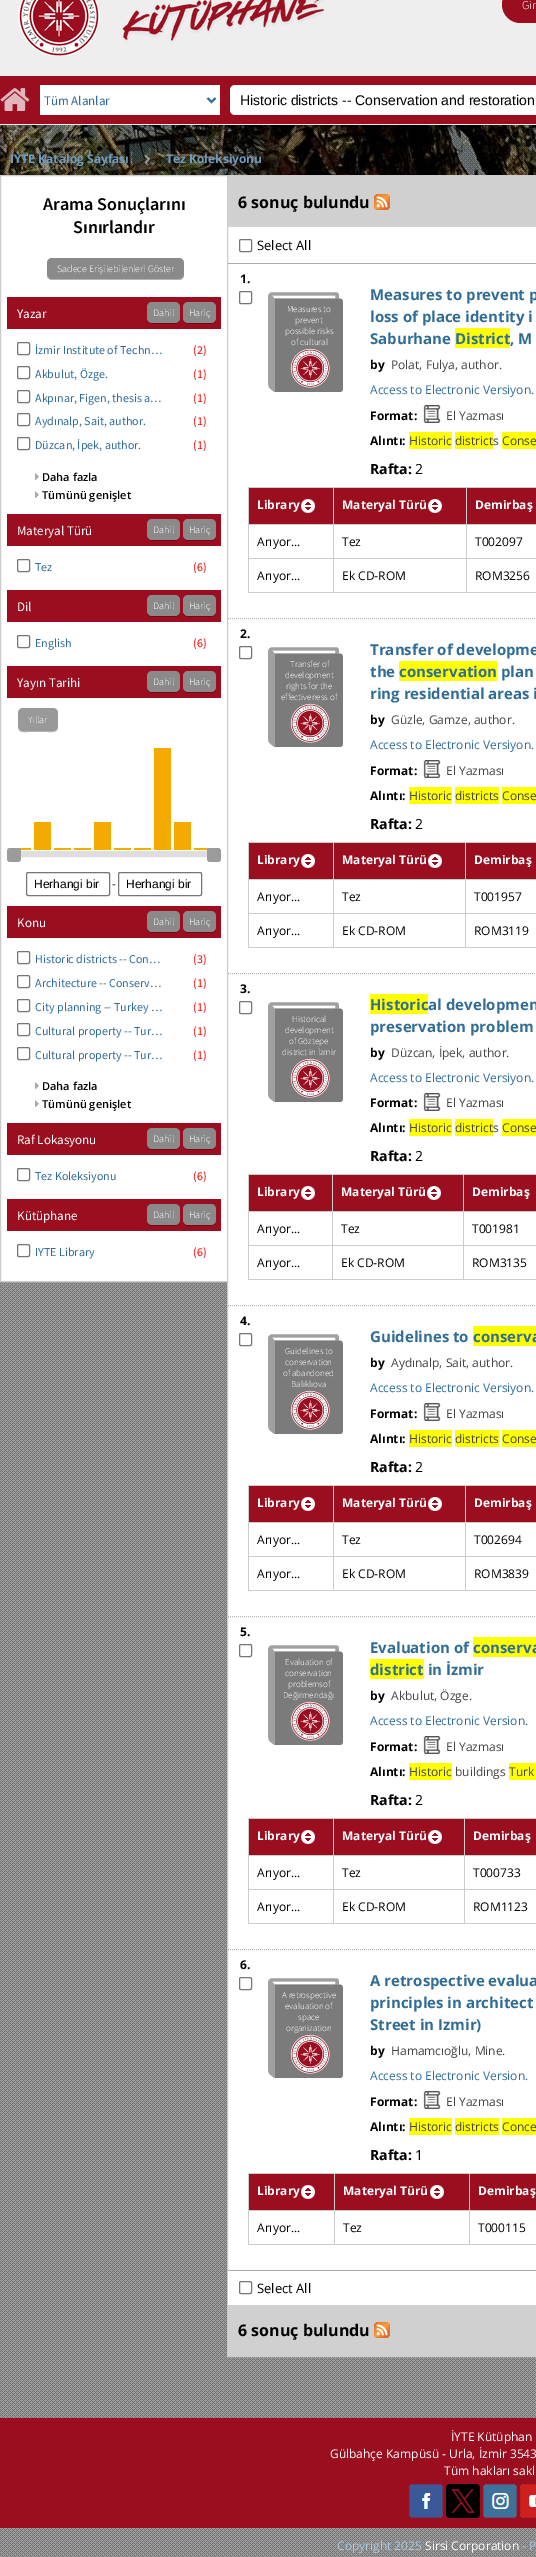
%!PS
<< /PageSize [536 2557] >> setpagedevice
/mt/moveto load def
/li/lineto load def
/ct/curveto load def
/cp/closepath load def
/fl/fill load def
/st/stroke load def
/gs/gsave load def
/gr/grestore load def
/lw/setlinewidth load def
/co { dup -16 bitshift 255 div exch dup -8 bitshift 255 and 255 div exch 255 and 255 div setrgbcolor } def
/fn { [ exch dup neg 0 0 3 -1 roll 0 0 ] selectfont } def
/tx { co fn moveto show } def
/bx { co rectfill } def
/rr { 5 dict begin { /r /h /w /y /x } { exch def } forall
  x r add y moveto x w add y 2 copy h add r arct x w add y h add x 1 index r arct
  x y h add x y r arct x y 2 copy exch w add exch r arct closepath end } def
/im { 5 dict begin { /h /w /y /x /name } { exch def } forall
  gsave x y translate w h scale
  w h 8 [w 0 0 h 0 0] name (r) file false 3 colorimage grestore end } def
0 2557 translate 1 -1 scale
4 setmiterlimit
0 0 536 2557 16#FFFFFF bx
(media/1.raw) 0 125 536 2432 im
0 0 536 76 16#EEEEEE bx
(media/2.raw) 18 0 307 56 im
16#9A0E20 co
502 -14 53 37 18.5 rr fl
0 76 536 48 16#9A0E20 bx
0 124 536 1 16#EEEEEE bx
(media/3.raw) 0 88 30 23 im
40 85 180 30 16#FFFFFF bx
16#306D9C co
2 lw
207.5 98 mt 211.5 102 li 215.5 98 li st
16#FFFFFF co
230 85 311 30 5 rr fl
(media/4.raw) 144 154 7 10 im
.5 175.5 mt 227.5 175.5 li 227.5 1281.5 li .5 1281.5 li cp gs fl gr
16#CCCCCC co
1 lw
st
16#B3B3B3 co
47 274 mt 47 275 li 47 278 49 280 52 280 ct 179 280 li 182 280 184 278 184 275 ct 184 274 li 184 277 182 279 179 279 ct 52 279 li 49 279 47 277 47 274 ct cp fl
16#8A8A8A co
47 258 137 21 5 rr fl
7 297 214 32 16#9A0E20 bx
16#6C0A16 co
147 318 mt 147 324 151 324 156 324 ct 171 324 li 176 324 180 324 180 318 ct 180 321 178 323 175 323 ct 152 323 li 149 323 147 321 147 318 ct cp fl
16#8A8A8A co
147 302 33 21 5 rr fl
16#6C0A16 co
183 318 mt 183 324 187 324 192 324 ct 207 324 li 212 324 216 324 216 318 ct 216 321 214 323 211 323 ct 188 323 li 185 323 183 321 183 318 ct cp fl
16#8A8A8A co
183 302 33 21 5 rr fl
16#767676 co
17.5 342.5 12 12 1.5 rr st
17.5 366.5 12 12 1.5 rr st
17.5 390.5 12 12 1.5 rr st
17.5 413.5 12 12 1.5 rr st
17.5 437.5 12 12 1.5 rr st
(media/5.raw) 35 473 4 7 im
(media/5.raw) 35 491 4 7 im
7 514 214 32 16#9A0E20 bx
16#6C0A16 co
147 535 mt 147 541 151 541 156 541 ct 171 541 li 176 541 180 541 180 535 ct 180 538 178 540 175 540 ct 152 540 li 149 540 147 538 147 535 ct cp fl
16#8A8A8A co
147 519 33 21 5 rr fl
16#6C0A16 co
183 535 mt 183 541 187 541 192 541 ct 207 541 li 212 541 216 541 216 535 ct 216 538 214 540 211 540 ct 188 540 li 185 540 183 538 183 535 ct cp fl
16#8A8A8A co
183 519 33 21 5 rr fl
16#767676 co
17.5 559.5 12 12 1.5 rr st
7 590 214 32 16#9A0E20 bx
16#6C0A16 co
147 611 mt 147 617 151 617 156 617 ct 171 617 li 176 617 180 617 180 611 ct 180 614 178 616 175 616 ct 152 616 li 149 616 147 614 147 611 ct cp fl
16#8A8A8A co
147 595 33 21 5 rr fl
16#6C0A16 co
183 611 mt 183 617 187 617 192 617 ct 207 617 li 212 617 216 617 216 611 ct 216 614 214 616 211 616 ct 188 616 li 185 616 183 614 183 611 ct cp fl
16#8A8A8A co
183 595 33 21 5 rr fl
16#767676 co
17.5 635.5 12 12 1.5 rr st
7 666 214 32 16#9A0E20 bx
16#6C0A16 co
147 687 mt 147 693 151 693 156 693 ct 171 693 li 176 693 180 693 180 687 ct 180 690 178 692 175 692 ct 152 692 li 149 692 147 690 147 687 ct cp fl
16#8A8A8A co
147 671 33 21 5 rr fl
16#6C0A16 co
183 687 mt 183 693 187 693 192 693 ct 207 693 li 212 693 216 693 216 687 ct 216 690 214 692 211 692 ct 188 692 li 185 692 183 690 183 687 ct cp fl
16#8A8A8A co
183 671 33 21 5 rr fl
16#B3B3B3 co
18 726 mt 18 733 23 732 28 732 ct 48 732 li 53 732 58 733 58 726 ct 58 729 56 731 53 731 ct 23 731 li 20 731 18 729 18 726 ct cp fl
16#999999 co
18 708 40 23 5 rr fl
14 848 17 2 16#F4AA00 bx
34 822 17 28 16#F4AA00 bx
54 848 17 2 16#F4AA00 bx
74 848 17 2 16#F4AA00 bx
94 822 17 28 16#F4AA00 bx
114 848 17 2 16#F4AA00 bx
134 848 17 2 16#F4AA00 bx
154 748 17 102 16#F4AA00 bx
174 822 17 28 16#F4AA00 bx
194 848 17 2 16#F4AA00 bx
16#DEDEDE co
13.5 851.5 201 5 rectstroke
14 852 200 4 16#DEDEDE bx
16#9B9B9B co
7 848 14 14 3 rr fl
207 848 14 14 3 rr fl
16#767676 co
26.5 872.5 83 23 1.5 rr st
118.5 872.5 83 23 1.5 rr st
7 906 214 32 16#9A0E20 bx
16#6C0A16 co
147 927 mt 147 933 151 933 156 933 ct 171 933 li 176 933 180 933 180 927 ct 180 930 178 932 175 932 ct 152 932 li 149 932 147 930 147 927 ct cp fl
16#8A8A8A co
147 911 33 21 5 rr fl
16#6C0A16 co
183 927 mt 183 933 187 933 192 933 ct 207 933 li 212 933 216 933 216 927 ct 216 930 214 932 211 932 ct 188 932 li 185 932 183 930 183 927 ct cp fl
16#8A8A8A co
183 911 33 21 5 rr fl
16#767676 co
17.5 951.5 12 12 1.5 rr st
17.5 975.5 12 12 1.5 rr st
17.5 999.5 12 12 1.5 rr st
17.5 1023.5 12 12 1.5 rr st
17.5 1047.5 12 12 1.5 rr st
(media/5.raw) 35 1082 4 7 im
(media/5.raw) 35 1100 4 7 im
7 1123 214 32 16#9A0E20 bx
16#6C0A16 co
147 1144 mt 147 1150 151 1150 156 1150 ct 171 1150 li 176 1150 180 1150 180 1144 ct 180 1147 178 1149 175 1149 ct 152 1149 li 149 1149 147 1147 147 1144 ct cp fl
16#8A8A8A co
147 1128 33 21 5 rr fl
16#6C0A16 co
183 1144 mt 183 1150 187 1150 192 1150 ct 207 1150 li 212 1150 216 1150 216 1144 ct 216 1147 214 1149 211 1149 ct 188 1149 li 185 1149 183 1147 183 1144 ct cp fl
16#8A8A8A co
183 1128 33 21 5 rr fl
16#767676 co
17.5 1168.5 12 12 1.5 rr st
7 1199 214 32 16#9A0E20 bx
16#6C0A16 co
147 1220 mt 147 1226 151 1226 156 1226 ct 171 1226 li 176 1226 180 1226 180 1220 ct 180 1223 178 1225 175 1225 ct 152 1225 li 149 1225 147 1223 147 1220 ct cp fl
16#8A8A8A co
147 1204 33 21 5 rr fl
16#6C0A16 co
183 1220 mt 183 1226 187 1226 192 1226 ct 207 1226 li 212 1226 216 1226 216 1220 ct 216 1223 214 1225 211 1225 ct 188 1225 li 185 1225 183 1223 183 1220 ct cp fl
16#8A8A8A co
183 1204 33 21 5 rr fl
16#767676 co
17.5 1244.5 12 12 1.5 rr st
228 227 308 2043 16#FFFFFF bx
16#CCCCCC co
227.5 175.5 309 2181 rectstroke
228 176 308 51 16#D0D0D0 bx
(media/6.raw) 374 194 16 16 im
228 263 308 1 16#ACACAC bx
16#767676 co
239.5 239.5 12 12 1.5 rr st
16#B5B5B5 co
[1 1] 0 setdash
228 618.5 mt 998 618.5 li st
16#767676 co
[] 0 setdash
239.5 291.5 12 12 1.5 rr st
(media/7.raw) 268 292 75 100 im
455 328 55 20 16#FFFF00 bx
(media/8.raw) 423 405 18 18 im
409 432 43 17 16#FFFF00 bx
455 432 38 17 16#FFFF00 bx
502 432 34 17 16#FFFF00 bx
249 488 287 36 16#9A0E20 bx
466 487 70 1 16#CCCCCC bx
466 524 70 1 16#CCCCCC bx
466 558 70 1 16#CCCCCC bx
466 592 70 1 16#CCCCCC bx
466 558 1 35 16#CCCCCC bx
333 558 134 1 16#CCCCCC bx
466 524 1 35 16#CCCCCC bx
333 524 134 1 16#CCCCCC bx
466 487 1 38 16#CCCCCC bx
333 487 134 1 16#CCCCCC bx
333 592 134 1 16#CCCCCC bx
333 558 1 35 16#CCCCCC bx
248 558 86 1 16#CCCCCC bx
333 524 1 35 16#CCCCCC bx
248 524 86 1 16#CCCCCC bx
333 487 1 38 16#CCCCCC bx
248 487 86 1 16#CCCCCC bx
248 592 86 1 16#CCCCCC bx
248 558 1 35 16#CCCCCC bx
248 524 1 35 16#CCCCCC bx
248 487 1 38 16#CCCCCC bx
(media/9.raw) 301 499 14 14 im
(media/9.raw) 428 499 14 14 im
16#B5B5B5 co
[1 1] 0 setdash
228 973.5 mt 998 973.5 li st
16#767676 co
[] 0 setdash
239.5 646.5 12 12 1.5 rr st
(media/7.raw) 268 647 75 100 im
399 661 98 20 16#FFFF00 bx
(media/8.raw) 423 760 18 18 im
409 787 43 17 16#FFFF00 bx
455 787 44 17 16#FFFF00 bx
502 787 34 17 16#FFFF00 bx
249 843 287 36 16#9A0E20 bx
465 842 71 1 16#CCCCCC bx
465 879 71 1 16#CCCCCC bx
465 913 71 1 16#CCCCCC bx
465 947 71 1 16#CCCCCC bx
465 913 1 35 16#CCCCCC bx
333 913 133 1 16#CCCCCC bx
465 879 1 35 16#CCCCCC bx
333 879 133 1 16#CCCCCC bx
465 842 1 38 16#CCCCCC bx
333 842 133 1 16#CCCCCC bx
333 947 133 1 16#CCCCCC bx
333 913 1 35 16#CCCCCC bx
248 913 86 1 16#CCCCCC bx
333 879 1 35 16#CCCCCC bx
248 879 86 1 16#CCCCCC bx
333 842 1 38 16#CCCCCC bx
248 842 86 1 16#CCCCCC bx
248 947 86 1 16#CCCCCC bx
248 913 1 35 16#CCCCCC bx
248 879 1 35 16#CCCCCC bx
248 842 1 38 16#CCCCCC bx
(media/9.raw) 301 854 14 14 im
(media/9.raw) 428 854 14 14 im
16#B5B5B5 co
[1 1] 0 setdash
228 1305.5 mt 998 1305.5 li st
16#767676 co
[] 0 setdash
239.5 1001.5 12 12 1.5 rr st
(media/7.raw) 268 1002 75 100 im
370 994 58 20 16#FFFF00 bx
(media/8.raw) 423 1093 18 18 im
409 1119 43 17 16#FFFF00 bx
455 1119 38 17 16#FFFF00 bx
502 1119 34 17 16#FFFF00 bx
249 1175 287 36 16#9A0E20 bx
463 1174 73 1 16#CCCCCC bx
463 1211 73 1 16#CCCCCC bx
463 1245 73 1 16#CCCCCC bx
463 1279 73 1 16#CCCCCC bx
463 1245 1 35 16#CCCCCC bx
332 1245 132 1 16#CCCCCC bx
463 1211 1 35 16#CCCCCC bx
332 1211 132 1 16#CCCCCC bx
463 1174 1 38 16#CCCCCC bx
332 1174 132 1 16#CCCCCC bx
332 1279 132 1 16#CCCCCC bx
332 1245 1 35 16#CCCCCC bx
248 1245 85 1 16#CCCCCC bx
332 1211 1 35 16#CCCCCC bx
248 1211 85 1 16#CCCCCC bx
332 1174 1 38 16#CCCCCC bx
248 1174 85 1 16#CCCCCC bx
248 1279 85 1 16#CCCCCC bx
248 1245 1 35 16#CCCCCC bx
248 1211 1 35 16#CCCCCC bx
248 1174 1 38 16#CCCCCC bx
(media/9.raw) 301 1186 14 14 im
(media/9.raw) 427 1186 14 14 im
16#B5B5B5 co
[1 1] 0 setdash
228 1616.5 mt 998 1616.5 li st
16#767676 co
[] 0 setdash
239.5 1333.5 12 12 1.5 rr st
(media/7.raw) 268 1334 75 100 im
473 1326 63 20 16#FFFF00 bx
(media/8.raw) 423 1403 18 18 im
409 1430 43 17 16#FFFF00 bx
455 1430 44 17 16#FFFF00 bx
502 1430 34 17 16#FFFF00 bx
249 1486 287 36 16#9A0E20 bx
465 1485 71 1 16#CCCCCC bx
465 1522 71 1 16#CCCCCC bx
465 1556 71 1 16#CCCCCC bx
465 1590 71 1 16#CCCCCC bx
465 1556 1 35 16#CCCCCC bx
333 1556 133 1 16#CCCCCC bx
465 1522 1 35 16#CCCCCC bx
333 1522 133 1 16#CCCCCC bx
465 1485 1 38 16#CCCCCC bx
333 1485 133 1 16#CCCCCC bx
333 1590 133 1 16#CCCCCC bx
333 1556 1 35 16#CCCCCC bx
248 1556 86 1 16#CCCCCC bx
333 1522 1 35 16#CCCCCC bx
248 1522 86 1 16#CCCCCC bx
333 1485 1 38 16#CCCCCC bx
248 1485 86 1 16#CCCCCC bx
248 1590 86 1 16#CCCCCC bx
248 1556 1 35 16#CCCCCC bx
248 1522 1 35 16#CCCCCC bx
248 1485 1 38 16#CCCCCC bx
(media/9.raw) 301 1497 14 14 im
(media/9.raw) 428 1497 14 14 im
16#B5B5B5 co
[1 1] 0 setdash
228 1949.5 mt 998 1949.5 li st
16#767676 co
[] 0 setdash
239.5 1644.5 12 12 1.5 rr st
(media/7.raw) 268 1645 75 100 im
473 1637 63 20 16#FFFF00 bx
370 1659 54 20 16#FFFF00 bx
(media/8.raw) 423 1736 18 18 im
409 1763 43 17 16#FFFF00 bx
509 1763 27 17 16#FFFF00 bx
249 1819 287 36 16#9A0E20 bx
464 1818 72 1 16#CCCCCC bx
464 1855 72 1 16#CCCCCC bx
464 1889 72 1 16#CCCCCC bx
464 1923 72 1 16#CCCCCC bx
464 1889 1 35 16#CCCCCC bx
333 1889 132 1 16#CCCCCC bx
464 1855 1 35 16#CCCCCC bx
333 1855 132 1 16#CCCCCC bx
464 1818 1 38 16#CCCCCC bx
333 1818 132 1 16#CCCCCC bx
333 1923 132 1 16#CCCCCC bx
333 1889 1 35 16#CCCCCC bx
248 1889 86 1 16#CCCCCC bx
333 1855 1 35 16#CCCCCC bx
248 1855 86 1 16#CCCCCC bx
333 1818 1 38 16#CCCCCC bx
248 1818 86 1 16#CCCCCC bx
248 1923 86 1 16#CCCCCC bx
248 1889 1 35 16#CCCCCC bx
248 1855 1 35 16#CCCCCC bx
248 1818 1 38 16#CCCCCC bx
(media/9.raw) 301 1830 14 14 im
(media/9.raw) 428 1830 14 14 im
16#767676 co
239.5 1977.5 12 12 1.5 rr st
(media/7.raw) 268 1978 75 100 im
(media/8.raw) 423 2091 18 18 im
409 2118 43 17 16#FFFF00 bx
455 2118 44 17 16#FFFF00 bx
502 2118 34 17 16#FFFF00 bx
249 2174 287 36 16#9A0E20 bx
469 2173 67 1 16#CCCCCC bx
469 2210 67 1 16#CCCCCC bx
469 2244 67 1 16#CCCCCC bx
469 2210 1 35 16#CCCCCC bx
334 2210 136 1 16#CCCCCC bx
469 2173 1 38 16#CCCCCC bx
334 2173 136 1 16#CCCCCC bx
334 2244 136 1 16#CCCCCC bx
334 2210 1 35 16#CCCCCC bx
248 2210 87 1 16#CCCCCC bx
334 2173 1 38 16#CCCCCC bx
248 2173 87 1 16#CCCCCC bx
248 2244 87 1 16#CCCCCC bx
248 2210 1 35 16#CCCCCC bx
248 2173 1 38 16#CCCCCC bx
(media/9.raw) 301 2185 14 14 im
(media/9.raw) 430 2185 14 14 im
228 2271 308 34 16#FFFFFF bx
228 2270 308 1 16#ACACAC bx
16#767676 co
239.5 2281.5 12 12 1.5 rr st
228 2305 308 51 16#D0D0D0 bx
(media/6.raw) 374 2322 16 16 im
0 2418 536 110 16#9A0E20 bx
(media/10.raw) 409 2484 34 34 im
(media/11.raw) 446 2484 34 34 im
(media/12.raw) 483 2484 34 34 im
(media/13.raw) 520 2484 16 34 im
(Gir) 522 9 /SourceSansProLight-Light 12 16#FFFFFF tx
(Tüm Alanlar) 44 105 /SourceSansPro-Regular 13 16#306D9C tx
(Historic districts -- Conservation and restoration) 240 105 /LiberationSans-Regular 14 16#000000 tx
(IYTE Katalog Sayfası) 10 163 /OpenSans-Bold 12 16#6F9CBE tx
(Tez Koleksiyonu) 166 163 /OpenSans-Bold 12 16#6F9CBE tx
(Arama Sonuçlarını) 43 210 /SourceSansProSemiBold-SemiBold 18 16#000000 tx
(Sınırlandır) 73 233 /SourceSansProSemiBold-SemiBold 18 16#000000 tx
(Sadece Erişilebilenleri Göster) 57 272 /SourceSansProLight-Light 10 16#FFFFFF tx
(Yazar) 17 318 /SourceSansPro-Regular 13 16#FFFFFF tx
(Dahil) 153 316 /SourceSansProLight-Light 10 16#FFFFFF tx
(Hariç) 189 316 /SourceSansProLight-Light 10 16#FFFFFF tx
(İzmir Institute of Techn…) 35 354 /SourceSansPro-Regular 12 16#306D9C tx
(\(2\)) 193 354 /SourceSansPro-Regular 12 16#FF0000 tx
(Akbulut, Özge.) 35 378 /SourceSansPro-Regular 12 16#306D9C tx
(\(1\)) 193 378 /SourceSansPro-Regular 12 16#FF0000 tx
(Akpınar, Figen, thesis a…) 35 402 /SourceSansPro-Regular 12 16#306D9C tx
(\(1\)) 193 402 /SourceSansPro-Regular 12 16#FF0000 tx
(Aydınalp, Sait, author.) 35 425 /SourceSansPro-Regular 12 16#306D9C tx
(\(1\)) 193 425 /SourceSansPro-Regular 12 16#FF0000 tx
(Düzcan, İpek, author.) 35 449 /SourceSansPro-Regular 12 16#306D9C tx
(\(1\)) 193 449 /SourceSansPro-Regular 12 16#FF0000 tx
(Daha fazla) 42 481 /OpenSans-SemiBold 11 16#000000 tx
(Tümünü genişlet) 42 499 /OpenSans-SemiBold 11 16#000000 tx
(Materyal Türü) 17 535 /SourceSansPro-Regular 13 16#FFFFFF tx
(Dahil) 153 533 /SourceSansProLight-Light 10 16#FFFFFF tx
(Hariç) 189 533 /SourceSansProLight-Light 10 16#FFFFFF tx
(Tez) 35 571 /SourceSansPro-Regular 12 16#306D9C tx
(\(6\)) 193 571 /SourceSansPro-Regular 12 16#FF0000 tx
(Dil) 17 611 /SourceSansPro-Regular 13 16#FFFFFF tx
(Dahil) 153 609 /SourceSansProLight-Light 10 16#FFFFFF tx
(Hariç) 189 609 /SourceSansProLight-Light 10 16#FFFFFF tx
(English) 35 647 /SourceSansPro-Regular 12 16#306D9C tx
(\(6\)) 193 647 /SourceSansPro-Regular 12 16#FF0000 tx
(Yayın Tarihi) 17 687 /SourceSansPro-Regular 13 16#FFFFFF tx
(Dahil) 153 685 /SourceSansProLight-Light 10 16#FFFFFF tx
(Hariç) 189 685 /SourceSansProLight-Light 10 16#FFFFFF tx
(Yıllar) 28 723 /SourceSansProLight-Light 10 16#FFFFFF tx
(Herhangi bir) 34 888 /LiberationSans-Regular 12 16#000000 tx
(-) 112 888 /SourceSansPro-Regular 12 16#000000 tx
(Herhangi bir) 126 888 /LiberationSans-Regular 12 16#000000 tx
(Konu) 17 927 /SourceSansPro-Regular 13 16#FFFFFF tx
(Dahil) 153 925 /SourceSansProLight-Light 10 16#FFFFFF tx
(Hariç) 189 925 /SourceSansProLight-Light 10 16#FFFFFF tx
(Historic districts -- Con…) 35 963 /SourceSansPro-Regular 12 16#306D9C tx
(\(3\)) 193 963 /SourceSansPro-Regular 12 16#FF0000 tx
(Architecture -- Conserv…) 35 987 /SourceSansPro-Regular 12 16#306D9C tx
(\(1\)) 193 987 /SourceSansPro-Regular 12 16#FF0000 tx
(City planning -- Turkey …) 35 1011 /SourceSansPro-Regular 12 16#306D9C tx
(\(1\)) 193 1011 /SourceSansPro-Regular 12 16#FF0000 tx
(Cultural property -- Tur…) 35 1035 /SourceSansPro-Regular 12 16#306D9C tx
(\(1\)) 193 1035 /SourceSansPro-Regular 12 16#FF0000 tx
(Cultural property -- Tur…) 35 1059 /SourceSansPro-Regular 12 16#306D9C tx
(\(1\)) 193 1059 /SourceSansPro-Regular 12 16#FF0000 tx
(Daha fazla) 42 1090 /OpenSans-SemiBold 11 16#000000 tx
(Tümünü genişlet) 42 1108 /OpenSans-SemiBold 11 16#000000 tx
(Raf Lokasyonu) 17 1144 /SourceSansPro-Regular 13 16#FFFFFF tx
(Dahil) 153 1142 /SourceSansProLight-Light 10 16#FFFFFF tx
(Hariç) 189 1142 /SourceSansProLight-Light 10 16#FFFFFF tx
(Tez Koleksiyonu) 35 1180 /SourceSansPro-Regular 12 16#306D9C tx
(\(6\)) 193 1180 /SourceSansPro-Regular 12 16#FF0000 tx
(Kütüphane) 17 1220 /SourceSansPro-Regular 13 16#FFFFFF tx
(Dahil) 153 1218 /SourceSansProLight-Light 10 16#FFFFFF tx
(Hariç) 189 1218 /SourceSansProLight-Light 10 16#FFFFFF tx
(IYTE Library) 35 1256 /SourceSansPro-Regular 12 16#306D9C tx
(\(6\)) 193 1256 /SourceSansPro-Regular 12 16#FF0000 tx
(6 sonuç bulundu) 238 208 /OpenSans-Bold 16 16#000000 tx
(Select All) 257 250 /OpenSans-Regular 13 16#000000 tx
(1.) 240 283 /OpenSans-Bold 12 16#000000 tx
(Measures to) 287 312 /SourceSansProLight-Light 9 16#FFFFFF tx
(prevent) 295 323 /SourceSansProLight-Light 9 16#FFFFFF tx
(possible risks) 285 334 /SourceSansProLight-Light 9 16#FFFFFF tx
(of cultural) 291 345 /SourceSansProLight-Light 9 16#FFFFFF tx
(Measures to prevent p) 370 300 /OpenSans-Bold 15 16#306D96 tx
(loss of place identity i) 370 322 /OpenSans-Bold 15 16#306D96 tx
(Saburhane) 370 344 /OpenSans-Bold 15 16#306D96 tx
(District, M) 455 344 /OpenSans-Bold 15 16#306D96 tx
(by) 370 369 /OpenSans-Bold 12 16#000000 tx
(Polat, Fulya, author.) 391 369 /OpenSans-Regular 12 16#444444 tx
(Access to Electronic Versiyon.) 370 394 /OpenSans-Regular 12 16#306D9C tx
(Format:) 370 420 /OpenSans-Bold 12 16#000000 tx
(El Yazması) 446 420 /OpenSans-Regular 12 16#444444 tx
(Alıntı:) 370 445 /OpenSans-Bold 12 16#000000 tx
(Historic) 409 445 /OpenSans-Regular 12 16#444444 tx
(districts) 455 445 /OpenSans-Regular 12 16#444444 tx
(Conse) 502 445 /OpenSans-Regular 12 16#444444 tx
(Rafta:) 370 474 /OpenSans-Bold 14 16#000000 tx
(2) 415 474 /OpenSans-Regular 14 16#000000 tx
(Library) 257 509 /OpenSans-Bold 12 16#FFFFFF tx
(Materyal Türü) 342 509 /OpenSans-Bold 12 16#FFFFFF tx
(Demirbaş) 475 509 /OpenSans-Bold 12 16#FFFFFF tx
(Arıyor...) 257 546 /OpenSans-Regular 12 16#000000 tx
(Tez) 342 546 /OpenSans-Regular 12 16#000000 tx
(T002097) 475 546 /OpenSans-Regular 12 16#000000 tx
(Arıyor...) 257 580 /OpenSans-Regular 12 16#000000 tx
(Ek CD-ROM) 342 580 /OpenSans-Regular 12 16#000000 tx
(ROM3256) 475 580 /OpenSans-Regular 12 16#000000 tx
(2.) 240 638 /OpenSans-Bold 12 16#000000 tx
(Transfer of) 290 667 /SourceSansProLight-Light 9 16#FFFFFF tx
(development) 285 678 /SourceSansProLight-Light 9 16#FFFFFF tx
(rights for the) 286 689 /SourceSansProLight-Light 9 16#FFFFFF tx
(effectiveness of) 281 700 /SourceSansProLight-Light 9 16#FFFFFF tx
(Transfer of developme) 370 655 /OpenSans-Bold 15 16#306D96 tx
(the) 370 677 /OpenSans-Bold 15 16#306D96 tx
(conservation plan) 399 677 /OpenSans-Bold 15 16#306D96 tx
(ring residential areas i) 370 699 /OpenSans-Bold 15 16#306D96 tx
(by) 370 724 /OpenSans-Bold 12 16#000000 tx
(Güzle, Gamze, author.) 391 724 /OpenSans-Regular 12 16#444444 tx
(Access to Electronic Versiyon.) 370 749 /OpenSans-Regular 12 16#306D9C tx
(Format:) 370 775 /OpenSans-Bold 12 16#000000 tx
(El Yazması) 446 775 /OpenSans-Regular 12 16#444444 tx
(Alıntı:) 370 800 /OpenSans-Bold 12 16#000000 tx
(Historic) 409 800 /OpenSans-Regular 12 16#444444 tx
(districts) 455 800 /OpenSans-Regular 12 16#444444 tx
(Conse) 502 800 /OpenSans-Regular 12 16#444444 tx
(Rafta:) 370 829 /OpenSans-Bold 14 16#000000 tx
(2) 415 829 /OpenSans-Regular 14 16#000000 tx
(Library) 257 864 /OpenSans-Bold 12 16#FFFFFF tx
(Materyal Türü) 342 864 /OpenSans-Bold 12 16#FFFFFF tx
(Demirbaş) 474 864 /OpenSans-Bold 12 16#FFFFFF tx
(Arıyor...) 257 901 /OpenSans-Regular 12 16#000000 tx
(Tez) 342 901 /OpenSans-Regular 12 16#000000 tx
(T001957) 474 901 /OpenSans-Regular 12 16#000000 tx
(Arıyor...) 257 935 /OpenSans-Regular 12 16#000000 tx
(Ek CD-ROM) 342 935 /OpenSans-Regular 12 16#000000 tx
(ROM3119) 474 935 /OpenSans-Regular 12 16#000000 tx
(3.) 240 993 /OpenSans-Bold 12 16#000000 tx
(Historical) 292 1022 /SourceSansProLight-Light 9 16#FFFFFF tx
(development) 285 1033 /SourceSansProLight-Light 9 16#FFFFFF tx
(of Göztepe) 289 1044 /SourceSansProLight-Light 9 16#FFFFFF tx
(district in İzmir) 282 1055 /SourceSansProLight-Light 9 16#FFFFFF tx
(Historical developmen) 370 1010 /OpenSans-Bold 15 16#306D96 tx
(preservation problem) 370 1032 /OpenSans-Bold 15 16#306D96 tx
(by) 370 1057 /OpenSans-Bold 12 16#000000 tx
(Düzcan, İpek, author.) 391 1057 /OpenSans-Regular 12 16#444444 tx
(Access to Electronic Versiyon.) 370 1082 /OpenSans-Regular 12 16#306D9C tx
(Format:) 370 1107 /OpenSans-Bold 12 16#000000 tx
(El Yazması) 446 1107 /OpenSans-Regular 12 16#444444 tx
(Alıntı:) 370 1132 /OpenSans-Bold 12 16#000000 tx
(Historic) 409 1132 /OpenSans-Regular 12 16#444444 tx
(districts) 455 1132 /OpenSans-Regular 12 16#444444 tx
(Conse) 502 1132 /OpenSans-Regular 12 16#444444 tx
(Rafta:) 370 1161 /OpenSans-Bold 14 16#000000 tx
(2) 415 1161 /OpenSans-Regular 14 16#000000 tx
(Library) 257 1196 /OpenSans-Bold 12 16#FFFFFF tx
(Materyal Türü) 341 1196 /OpenSans-Bold 12 16#FFFFFF tx
(Demirbaş) 472 1196 /OpenSans-Bold 12 16#FFFFFF tx
(Arıyor...) 257 1233 /OpenSans-Regular 12 16#000000 tx
(Tez) 341 1233 /OpenSans-Regular 12 16#000000 tx
(T001981) 472 1233 /OpenSans-Regular 12 16#000000 tx
(Arıyor...) 257 1267 /OpenSans-Regular 12 16#000000 tx
(Ek CD-ROM) 341 1267 /OpenSans-Regular 12 16#000000 tx
(ROM3135) 472 1267 /OpenSans-Regular 12 16#000000 tx
(4.) 240 1325 /OpenSans-Bold 12 16#000000 tx
(Guidelines to) 285 1354 /SourceSansProLight-Light 9 16#FFFFFF tx
(conservation) 285 1365 /SourceSansProLight-Light 9 16#FFFFFF tx
(of abandoned) 283 1376 /SourceSansProLight-Light 9 16#FFFFFF tx
(Balıklıova) 291 1387 /SourceSansProLight-Light 9 16#FFFFFF tx
(Guidelines to) 370 1342 /OpenSans-Bold 15 16#306D96 tx
(conserva) 473 1342 /OpenSans-Bold 15 16#306D96 tx
(by) 370 1367 /OpenSans-Bold 12 16#000000 tx
(Aydınalp, Sait, author.) 391 1367 /OpenSans-Regular 12 16#444444 tx
(Access to Electronic Versiyon.) 370 1392 /OpenSans-Regular 12 16#306D9C tx
(Format:) 370 1418 /OpenSans-Bold 12 16#000000 tx
(El Yazması) 446 1418 /OpenSans-Regular 12 16#444444 tx
(Alıntı:) 370 1443 /OpenSans-Bold 12 16#000000 tx
(Historic) 409 1443 /OpenSans-Regular 12 16#444444 tx
(districts) 455 1443 /OpenSans-Regular 12 16#444444 tx
(Conse) 502 1443 /OpenSans-Regular 12 16#444444 tx
(Rafta:) 370 1472 /OpenSans-Bold 14 16#000000 tx
(2) 415 1472 /OpenSans-Regular 14 16#000000 tx
(Library) 257 1507 /OpenSans-Bold 12 16#FFFFFF tx
(Materyal Türü) 342 1507 /OpenSans-Bold 12 16#FFFFFF tx
(Demirbaş) 474 1507 /OpenSans-Bold 12 16#FFFFFF tx
(Arıyor...) 257 1544 /OpenSans-Regular 12 16#000000 tx
(Tez) 342 1544 /OpenSans-Regular 12 16#000000 tx
(T002694) 474 1544 /OpenSans-Regular 12 16#000000 tx
(Arıyor...) 257 1578 /OpenSans-Regular 12 16#000000 tx
(Ek CD-ROM) 342 1578 /OpenSans-Regular 12 16#000000 tx
(ROM3839) 474 1578 /OpenSans-Regular 12 16#000000 tx
(5.) 240 1636 /OpenSans-Bold 12 16#000000 tx
(Evaluation of) 285 1665 /SourceSansProLight-Light 9 16#FFFFFF tx
(conservation) 285 1676 /SourceSansProLight-Light 9 16#FFFFFF tx
(problemsof) 288 1687 /SourceSansProLight-Light 9 16#FFFFFF tx
(Değirmendağı) 283 1698 /SourceSansProLight-Light 9 16#FFFFFF tx
(Evaluation of) 370 1653 /OpenSans-Bold 15 16#306D96 tx
(conserva) 473 1653 /OpenSans-Bold 15 16#306D96 tx
(district in İzmir) 370 1675 /OpenSans-Bold 15 16#306D96 tx
(by) 370 1700 /OpenSans-Bold 12 16#000000 tx
(Akbulut, Özge.) 391 1700 /OpenSans-Regular 12 16#444444 tx
(Access to Electronic Version.) 370 1725 /OpenSans-Regular 12 16#306D9C tx
(Format:) 370 1751 /OpenSans-Bold 12 16#000000 tx
(El Yazması) 446 1751 /OpenSans-Regular 12 16#444444 tx
(Alıntı:) 370 1776 /OpenSans-Bold 12 16#000000 tx
(Historic buildings) 409 1776 /OpenSans-Regular 12 16#444444 tx
(Turk) 509 1776 /OpenSans-Regular 12 16#444444 tx
(Rafta:) 370 1805 /OpenSans-Bold 14 16#000000 tx
(2) 415 1805 /OpenSans-Regular 14 16#000000 tx
(Library) 257 1840 /OpenSans-Bold 12 16#FFFFFF tx
(Materyal Türü) 342 1840 /OpenSans-Bold 12 16#FFFFFF tx
(Demirbaş) 473 1840 /OpenSans-Bold 12 16#FFFFFF tx
(Arıyor...) 257 1877 /OpenSans-Regular 12 16#000000 tx
(Tez) 342 1877 /OpenSans-Regular 12 16#000000 tx
(T000733) 473 1877 /OpenSans-Regular 12 16#000000 tx
(Arıyor...) 257 1911 /OpenSans-Regular 12 16#000000 tx
(Ek CD-ROM) 342 1911 /OpenSans-Regular 12 16#000000 tx
(ROM1123) 473 1911 /OpenSans-Regular 12 16#000000 tx
(6.) 240 1969 /OpenSans-Bold 12 16#000000 tx
(A retrospective) 282 1998 /SourceSansProLight-Light 9 16#FFFFFF tx
(evaluation of) 285 2009 /SourceSansProLight-Light 9 16#FFFFFF tx
(space) 298 2020 /SourceSansProLight-Light 9 16#FFFFFF tx
(organization) 286 2031 /SourceSansProLight-Light 9 16#FFFFFF tx
(A retrospective evalua) 370 1986 /OpenSans-Bold 15 16#306D96 tx
(principles in architect) 370 2008 /OpenSans-Bold 15 16#306D96 tx
(Street in Izmir\)) 370 2030 /OpenSans-Bold 15 16#306D96 tx
(by) 370 2055 /OpenSans-Bold 12 16#000000 tx
(Hamamcıoğlu, Mine.) 391 2055 /OpenSans-Regular 12 16#444444 tx
(Access to Electronic Version.) 370 2080 /OpenSans-Regular 12 16#306D9C tx
(Format:) 370 2106 /OpenSans-Bold 12 16#000000 tx
(El Yazması) 446 2106 /OpenSans-Regular 12 16#444444 tx
(Alıntı:) 370 2131 /OpenSans-Bold 12 16#000000 tx
(Historic) 409 2131 /OpenSans-Regular 12 16#444444 tx
(districts) 455 2131 /OpenSans-Regular 12 16#444444 tx
(Conce) 502 2131 /OpenSans-Regular 12 16#444444 tx
(Rafta:) 370 2160 /OpenSans-Bold 14 16#000000 tx
(1) 415 2160 /OpenSans-Regular 14 16#000000 tx
(Library) 257 2195 /OpenSans-Bold 12 16#FFFFFF tx
(Materyal Türü) 343 2195 /OpenSans-Bold 12 16#FFFFFF tx
(Demirbaş) 478 2195 /OpenSans-Bold 12 16#FFFFFF tx
(Arıyor...) 257 2232 /OpenSans-Regular 12 16#000000 tx
(Tez) 343 2232 /OpenSans-Regular 12 16#000000 tx
(T000115) 478 2232 /OpenSans-Regular 12 16#000000 tx
(Select All) 257 2293 /OpenSans-Regular 13 16#000000 tx
(6 sonuç bulundu) 238 2336 /OpenSans-Bold 16 16#000000 tx
(İYTE Kütüphan) 451 2441 /OpenSans-Regular 12 16#FFFFFF tx
(Gülbahçe Kampüsü - Urla, İzmir 3543) 330 2458 /OpenSans-Regular 12 16#FFFFFF tx
(Tüm hakları sakl) 444 2475 /OpenSans-Regular 12 16#FFFFFF tx
(Copyright 2025) 337 2550 /OpenSans-Regular 12 16#ADC9DE tx
(Sirsi Corporation) 425 2550 /OpenSans-Regular 12 16#FFFFFF tx
(- P) 522 2550 /OpenSans-Regular 12 16#ADC9DE tx
showpage
